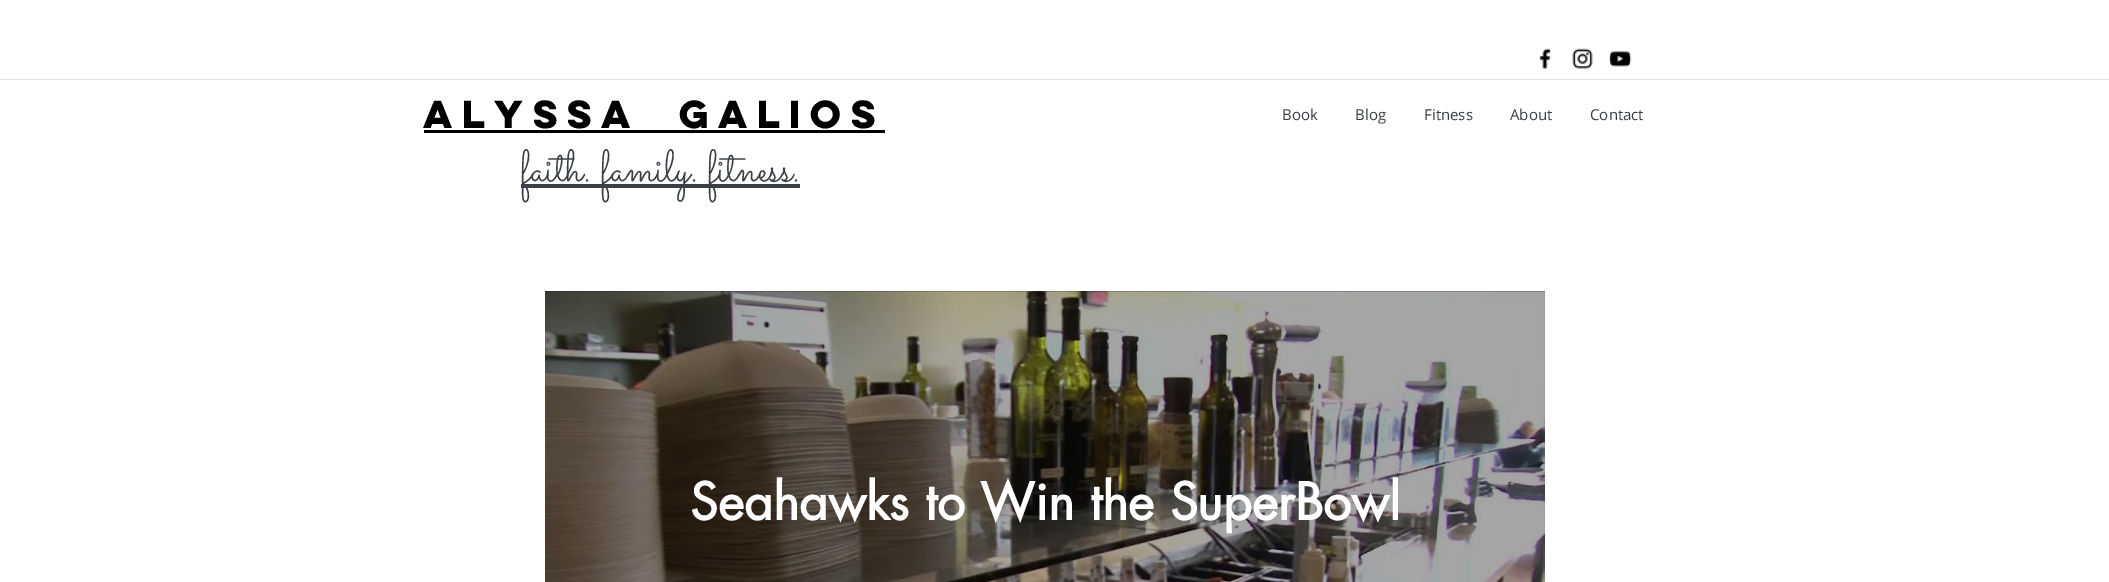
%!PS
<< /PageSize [2109 582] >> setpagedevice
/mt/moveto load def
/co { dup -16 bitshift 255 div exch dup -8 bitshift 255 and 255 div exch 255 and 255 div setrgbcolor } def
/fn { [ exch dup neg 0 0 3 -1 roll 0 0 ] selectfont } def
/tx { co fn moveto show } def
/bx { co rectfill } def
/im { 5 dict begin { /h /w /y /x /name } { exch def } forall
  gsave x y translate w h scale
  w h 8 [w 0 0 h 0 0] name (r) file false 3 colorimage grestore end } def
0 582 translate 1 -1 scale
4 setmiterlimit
0 0 2109 582 16#FFFFFF bx
0 79 2109 1 16#E1E2E3 bx
424 130 461 3 16#000000 bx
(media/1.raw) 1539 48 12 21 im
(media/2.raw) 1572 48 21 21 im
(media/3.raw) 1609 51 23 16 im
521 184 279 4 16#393F44 bx
(media/4.raw) 545 291 1000 291 im
(media/5.raw) 545 291 1000 1 im
/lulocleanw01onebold-Bold 35 fn
16#000000 co
423 128 mt 1.75 0 (ALYSSA  GALIOS) ashow
(Book) 1282 120 /OpenSans-Regular 15 16#393F44 tx
(Blog) 1355 120 /OpenSans-Regular 15 16#393F44 tx
(Fitness) 1424 120 /OpenSans-Regular 15 16#393F44 tx
(About) 1510 120 /OpenSans-Regular 15 16#393F44 tx
(Contact) 1590 120 /OpenSans-Regular 15 16#393F44 tx
(faith. family. fitness.) 521 181 /Sacramento-Regular 45 16#393F44 tx
(Seahawks to Win the SuperBowl) 690 520 /futura-Bold 50 16#FFFFFF tx
showpage
